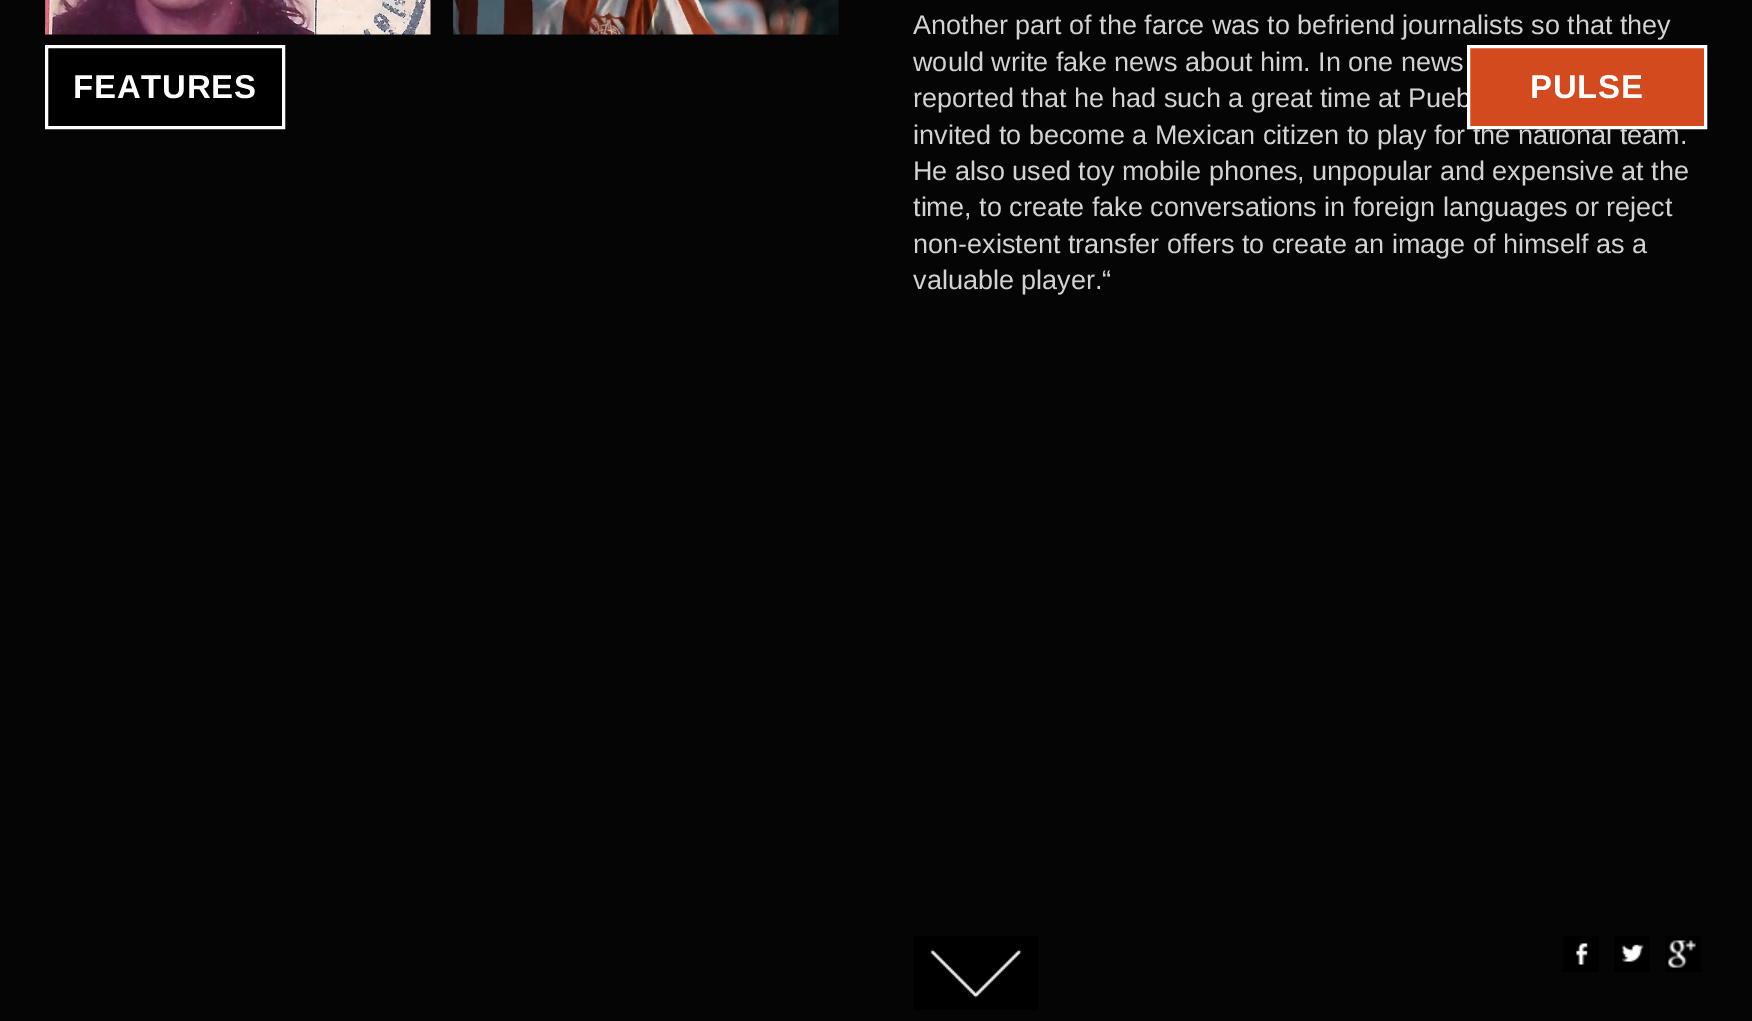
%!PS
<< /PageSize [1752 1021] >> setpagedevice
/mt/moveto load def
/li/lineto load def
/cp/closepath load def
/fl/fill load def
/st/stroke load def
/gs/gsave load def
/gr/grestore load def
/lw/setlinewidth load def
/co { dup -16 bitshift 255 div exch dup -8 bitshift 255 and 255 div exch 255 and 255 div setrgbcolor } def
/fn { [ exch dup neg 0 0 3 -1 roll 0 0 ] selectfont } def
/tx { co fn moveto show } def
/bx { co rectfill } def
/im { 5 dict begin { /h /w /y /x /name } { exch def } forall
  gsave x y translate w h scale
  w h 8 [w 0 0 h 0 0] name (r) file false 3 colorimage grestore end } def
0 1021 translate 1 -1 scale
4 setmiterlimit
0 0 1752 1021 16#050505 bx
(media/1.raw) 45 0 386 35 im
(media/2.raw) 453 0 386 35 im
914 936 124 74 16#000000 bx
(media/3.raw) 930 949 92 49 im
1563 936 36 36 16#000000 bx
(media/4.raw) 1576 943 12 22 im
1614 936 36 36 16#000000 bx
(media/5.raw) 1621 944 23 18 im
1665 936 36 36 16#000000 bx
(media/6.raw) 1668 940 28 28 im
46.5 46.5 mt 283.5 46.5 li 283.5 127.5 li 46.5 127.5 li cp gs fl gr
16#FFFFFF co
3 lw
st
(Another part of the farce was to befriend journalists so that they) 913 34 /LiberationSans-Regular 27 16#D3D3D3 tx
(would write fake news about him. In one news) 913 71 /LiberationSans-Regular 27 16#D3D3D3 tx
(reported that he had such a great time at Pueb) 913 107 /LiberationSans-Regular 27 16#D3D3D3 tx
(invited to become a Mexican citizen to play for the national team.) 913 144 /LiberationSans-Regular 27 16#D3D3D3 tx
(He also used toy mobile phones, unpopular and expensive at the) 913 180 /LiberationSans-Regular 27 16#D3D3D3 tx
(time, to create fake conversations in foreign languages or reject) 913 216 /LiberationSans-Regular 27 16#D3D3D3 tx
(non-existent transfer offers to create an image of himself as a) 913 253 /LiberationSans-Regular 27 16#D3D3D3 tx
(valuable player.“) 913 289 /LiberationSans-Regular 27 16#D3D3D3 tx
/LiberationSans-Bold 33 fn
16#FFFFFF co
73 98 mt .75 0 (FEATURES) ashow
16#D34A1F co
1468.5 46.5 mt 1705.5 46.5 li 1705.5 127.5 li 1468.5 127.5 li cp gs fl gr
16#FFFFFF co
st
1530 98 mt .75 0 (PULSE) ashow
showpage
